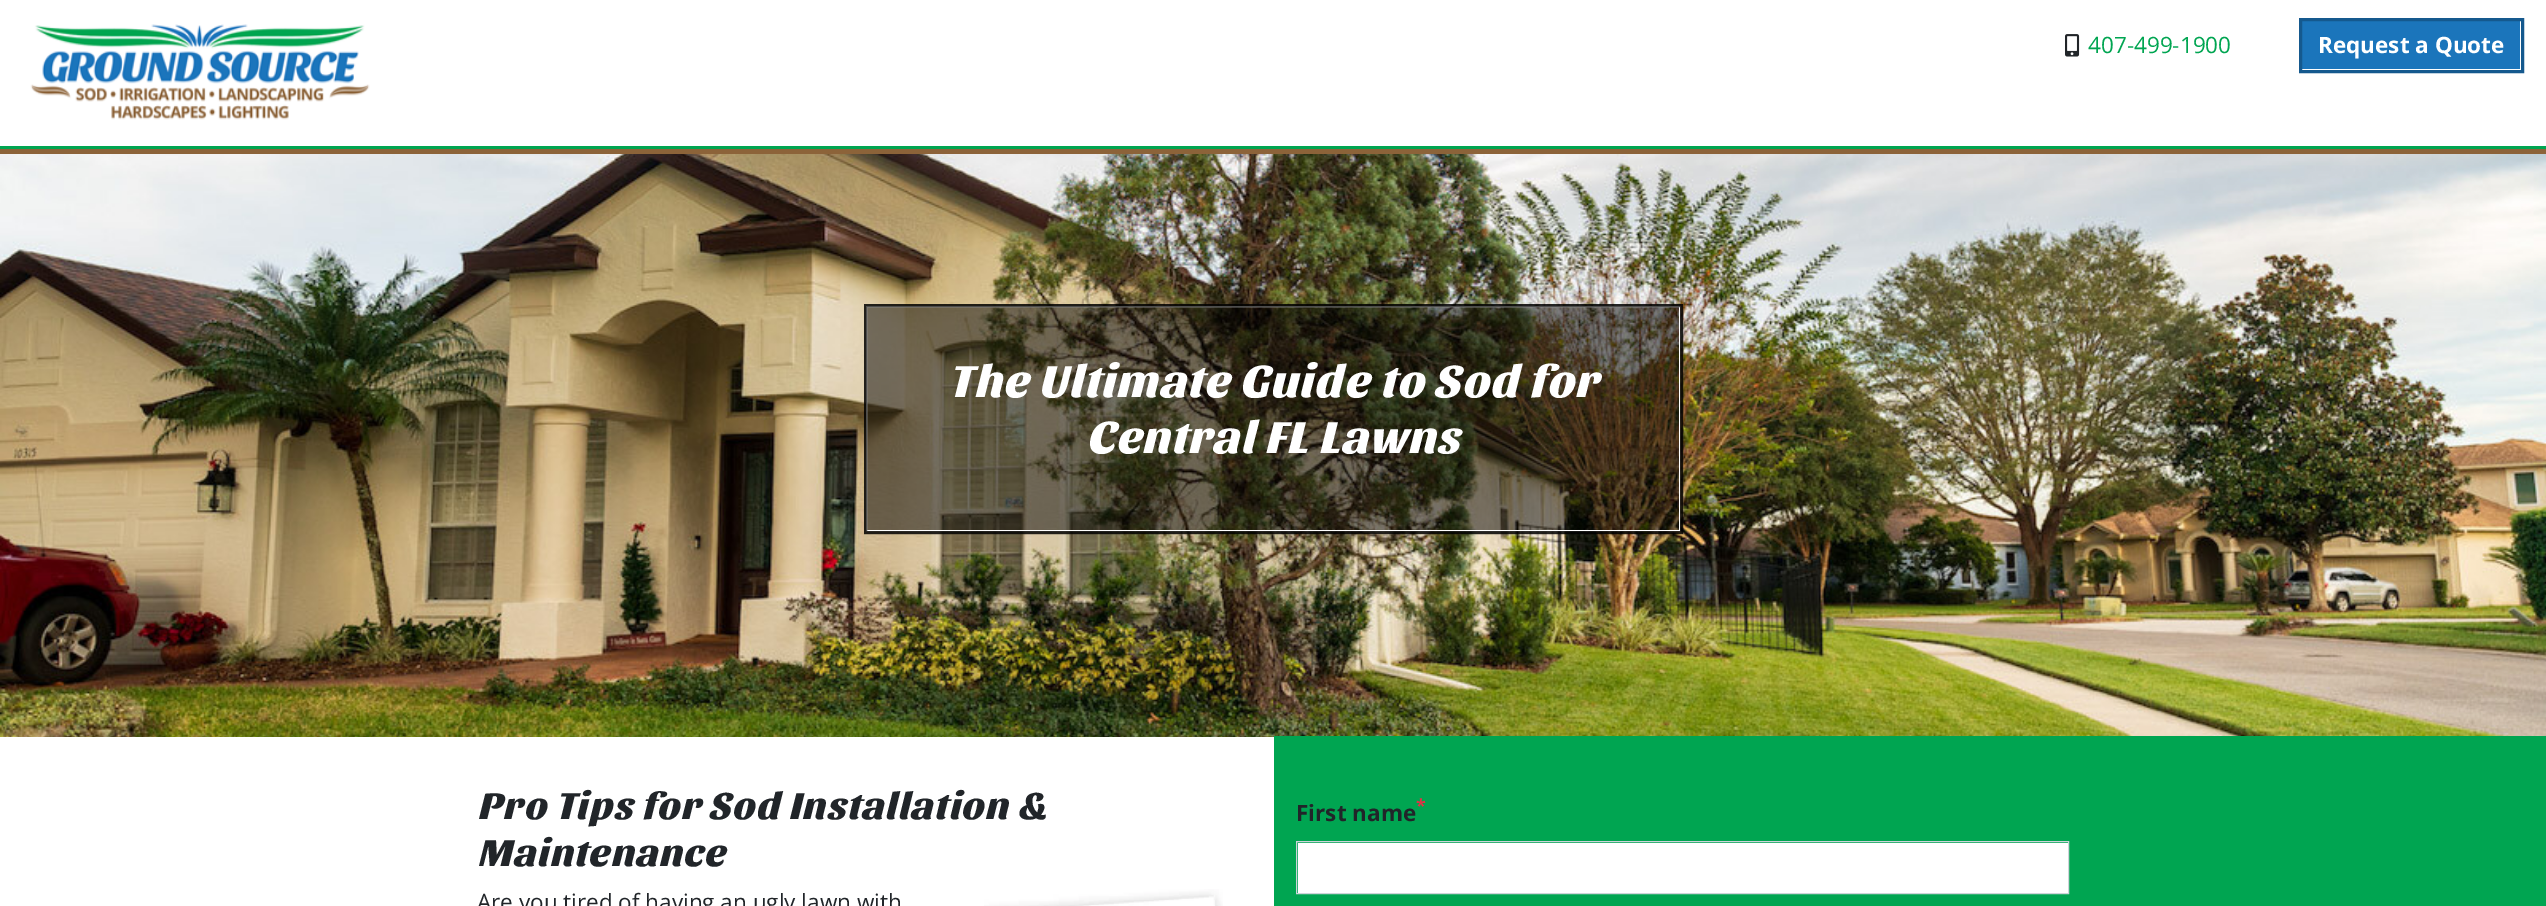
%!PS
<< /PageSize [2546 906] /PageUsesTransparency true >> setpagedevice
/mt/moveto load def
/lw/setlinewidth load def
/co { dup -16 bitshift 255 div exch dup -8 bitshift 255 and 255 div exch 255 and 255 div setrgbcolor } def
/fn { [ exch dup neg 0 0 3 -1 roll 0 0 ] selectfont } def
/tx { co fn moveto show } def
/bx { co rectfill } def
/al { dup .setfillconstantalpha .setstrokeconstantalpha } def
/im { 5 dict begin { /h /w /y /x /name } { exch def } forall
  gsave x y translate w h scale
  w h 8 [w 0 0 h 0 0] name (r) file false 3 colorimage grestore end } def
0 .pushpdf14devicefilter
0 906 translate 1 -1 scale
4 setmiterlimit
0 0 2546 906 16#FFFFFF bx
0 149 2546 5 16#8C6339 bx
0 146 2546 3 16#00A551 bx
(media/1.raw) 30 24 340 96 im
(media/2.raw) 2065 34 15 23 im
2302 21 218 48 16#1B75BB bx
16#15598E co
3 lw
2300.5 19.5 222 52 rectstroke
(media/3.raw) 0 154 2546 583 im
0.5 al
864 304 819 230 16#000000 bx
1 al
16#FFFFFF co
1 lw
866.5 306.5 813 224 rectstroke
0.7 al
16#000000 co
3 lw
865.5 305.5 816 227 rectstroke
1 al
(media/4.raw) 984 889 239 17 im
1274 736 1272 170 16#00A551 bx
1298 843 770 50 16#FFFFFF bx
16#CED4DA co
1 lw
1296.5 841.5 772 52 rectstroke
(407-499-1900) 2088 53 /OpenSans-Regular 22.5 16#00A551 tx
(Request a Quote) 2318 53 /OpenSans-Bold 22.5 16#FFFFFF tx
/Sansita-ExtraBoldItalic 46.7 fn
948 397 mt 1.25 0 (The Ultimate Guide to Sod for) ashow
1086 453 mt 1.25 0 (Central FL Lawns) ashow
/Sansita-ExtraBoldItalic 38.9 fn
16#212529 co
477 819 mt 1.25 0 (Pro Tips for Sod Installation &) ashow
477 866 mt 1.25 0 (Maintenance) ashow
(Are you tired of having an ugly lawn with) 477 910 /OpenSans-Regular 22.5 16#212529 tx
(First name) 1296 821 /OpenSans-Bold 22.5 16#212529 tx
(*) 1416 812 /OpenSans-Bold 18 16#DC3545 tx
.poppdf14devicefilter showpage
